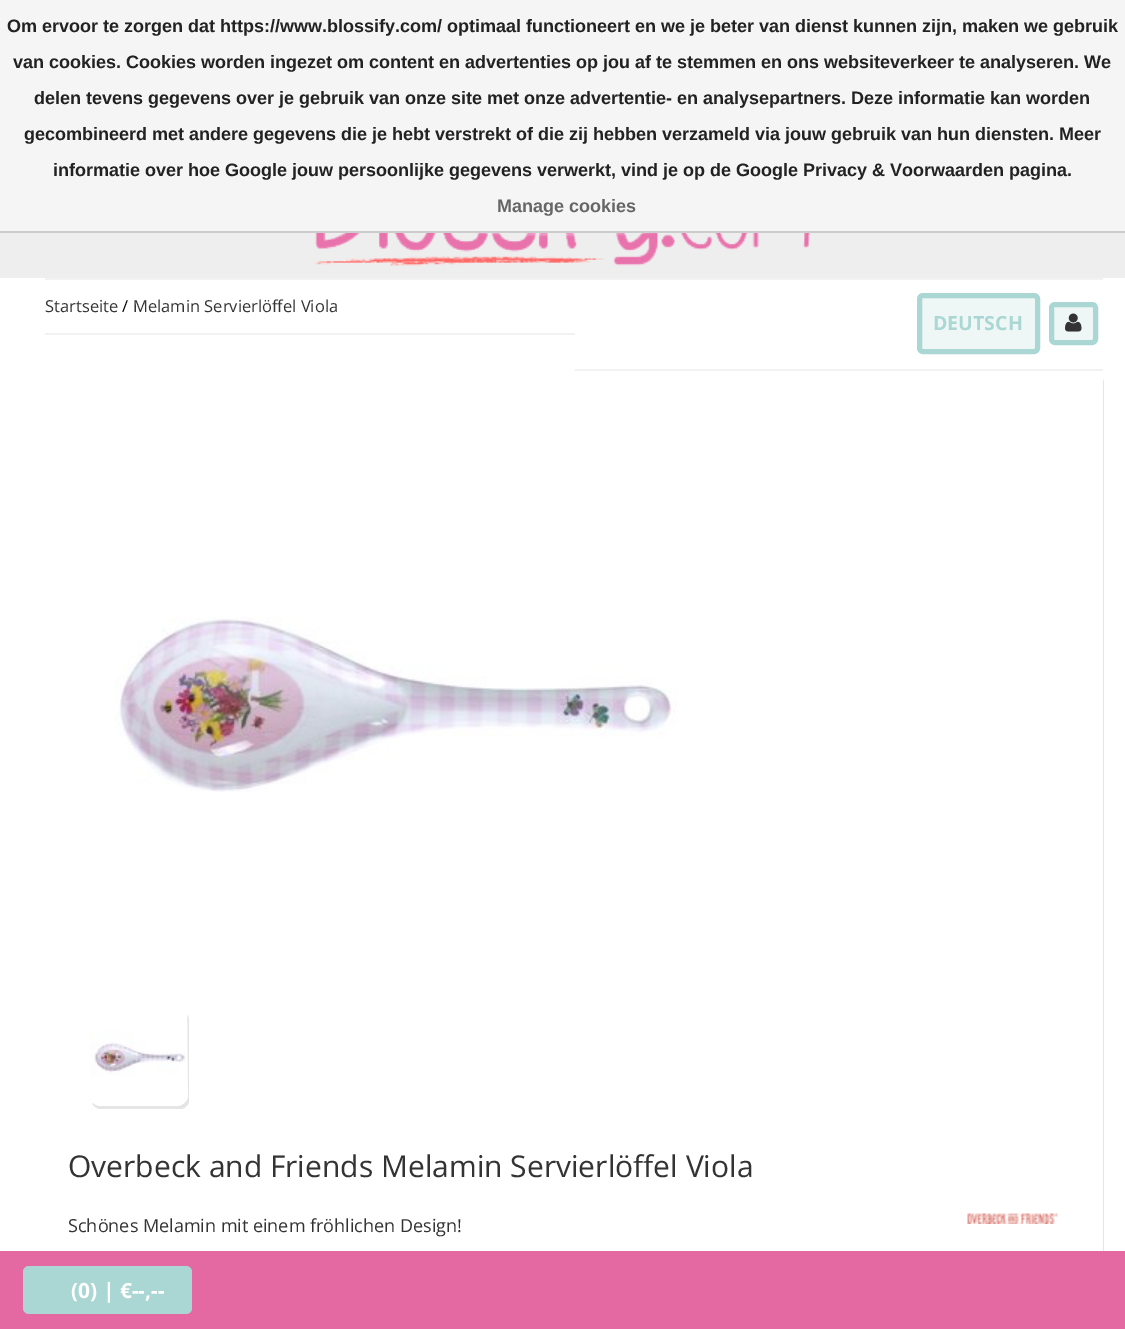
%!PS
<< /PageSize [1125 1329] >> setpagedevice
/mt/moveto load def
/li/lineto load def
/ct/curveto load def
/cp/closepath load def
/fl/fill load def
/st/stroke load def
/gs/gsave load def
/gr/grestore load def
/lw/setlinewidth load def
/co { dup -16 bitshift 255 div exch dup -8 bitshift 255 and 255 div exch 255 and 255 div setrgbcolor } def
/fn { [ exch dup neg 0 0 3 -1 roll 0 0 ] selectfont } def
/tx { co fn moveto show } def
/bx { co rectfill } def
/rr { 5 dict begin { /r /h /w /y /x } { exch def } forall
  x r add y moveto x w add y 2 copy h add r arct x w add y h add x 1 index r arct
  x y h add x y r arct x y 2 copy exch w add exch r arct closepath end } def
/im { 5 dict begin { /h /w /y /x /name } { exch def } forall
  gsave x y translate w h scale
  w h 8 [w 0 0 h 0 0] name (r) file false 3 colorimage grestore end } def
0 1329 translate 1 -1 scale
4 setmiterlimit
0 0 1125 1329 16#FFFFFF bx
0 0 1125 231 16#F5F5F5 bx
0 231 1125 2 16#CCCCCC bx
0 233 1125 45 16#EEEEEE bx
(media/1.raw) 315 233 495 33 im
45 278 1058 2 16#F2F2F2 bx
45 333 530 2 16#F2F2F2 bx
575 369 528 2 16#F2F2F2 bx
16#EEF7F6 co
919.5 295.5 118 56 3.5 rr gs fl gr
16#AAD7D3 co
5 lw
st
16#EEF7F6 co
1051.5 304.5 44 38 3.5 rr gs fl gr
16#AAD7D3 co
st
(media/2.raw) 1065 313 17 19 im
16#E5E5E5 co
48 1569 mt 49 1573 52 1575 56 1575 ct 1095 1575 li 1100 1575 1104 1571 1104 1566 ct 1104 383 li 1104 381 1103 379 1102 378 ct 1102 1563 li 1102 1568 1098 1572 1094 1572 ct 54 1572 li 52 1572 49 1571 48 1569 ct cp fl
16#FFFFFF co
45 371 1058 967 9 rr fl
(media/3.raw) 115 617 563 175 im
16#E5E5E5 co
92 1103 mt 93 1106 97 1109 101 1109 ct 180 1109 li 185 1109 189 1105 189 1100 ct 189 1020 li 189 1018 188 1016 187 1015 ct 188 1096 li 188 1101 183 1106 178 1106 ct 99 1106 li 96 1106 94 1104 92 1103 ct cp fl
(media/4.raw) 90 1016 98 85 im
(media/5.raw) 967 1213 91 11 im
0 1251 1125 78 16#E469A2 bx
16#AAD7D3 co
23 1266 169 48 6 rr fl
(Om ervoor te zorgen dat https://www.blossify.com/ optimaal functioneert en we je beter van dienst kunnen zijn, maken we gebruik) 7 32 /LiberationSans-Bold 18 16#222222 tx
(van cookies. Cookies worden ingezet om content en advertenties op jou af te stemmen en ons websiteverkeer te analyseren. We) 13 68 /LiberationSans-Bold 18 16#222222 tx
(delen tevens gegevens over je gebruik van onze site met onze advertentie- en analysepartners. Deze informatie kan worden) 34 104 /LiberationSans-Bold 18 16#222222 tx
(gecombineerd met andere gegevens die je hebt verstrekt of die zij hebben verzameld via jouw gebruik van hun diensten. Meer) 24 140 /LiberationSans-Bold 18 16#222222 tx
(informatie over hoe Google jouw persoonlijke gegevens verwerkt, vind je op de Google Privacy & Voorwaarden pagina.) 53 176 /LiberationSans-Bold 18 16#222222 tx
(Manage cookies) 497 212 /LiberationSans-Bold 18 16#666666 tx
(Startseite) 45 312 /OpenSans-Regular 16.5 16#333333 tx
(/) 122 312 /OpenSans-Regular 16.5 16#000000 tx
(Melamin Servierlöffel Viola) 133 312 /OpenSans-Regular 16.5 16#333333 tx
(DEUTSCH) 933 330 /OpenSans-Bold 19.5 16#AAD7D3 tx
(Overbeck and Friends Melamin Servierlöffel Viola) 68 1177 /OpenSans-Regular 30 16#333333 tx
(Schönes Melamin mit einem fröhlichen Design!) 68 1232 /OpenSans-Regular 18 16#333333 tx
(\(0\) | €--,--) 71 1298 /OpenSans-Bold 21 16#FFFFFF tx
showpage
